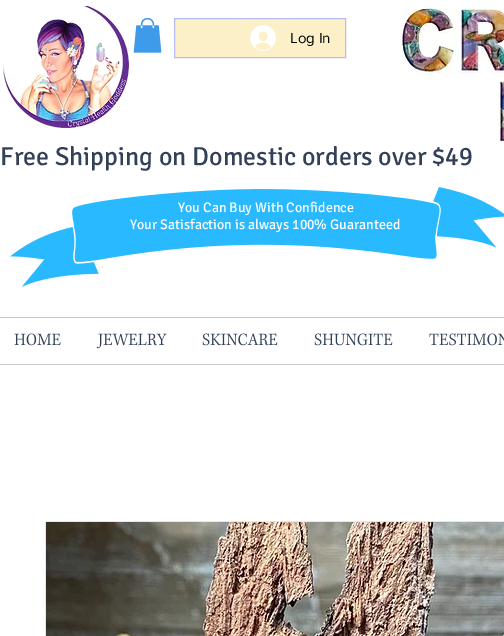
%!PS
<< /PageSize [504 636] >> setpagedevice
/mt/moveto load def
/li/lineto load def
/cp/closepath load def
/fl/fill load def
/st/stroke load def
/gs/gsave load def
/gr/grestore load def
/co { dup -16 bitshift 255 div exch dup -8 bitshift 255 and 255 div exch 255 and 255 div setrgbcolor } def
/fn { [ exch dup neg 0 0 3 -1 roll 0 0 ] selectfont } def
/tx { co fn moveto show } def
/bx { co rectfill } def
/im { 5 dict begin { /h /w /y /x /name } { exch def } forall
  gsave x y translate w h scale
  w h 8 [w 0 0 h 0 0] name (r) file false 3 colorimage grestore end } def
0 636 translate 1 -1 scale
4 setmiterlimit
0 0 504 636 16#FFFFFF bx
(media/1.raw) 3 6 126 123 im
(media/2.raw) 133 18 29 35 im
16#FBF0C8 co
174.5 18.5 mt 345.5 18.5 li 345.5 57.5 li 174.5 57.5 li cp gs fl gr
16#B5BCF0 co
st
(media/3.raw) 250 25 26 26 im
(media/4.raw) 398 6 106 135 im
(media/5.raw) 10 187 494 100 im
0 317 504 1 16#CACACA bx
0 364 504 1 16#CACACA bx
(media/6.raw) 14 333 47 13 im
(media/7.raw) 96 333 71 16 im
(media/8.raw) 202 333 76 13 im
(media/9.raw) 314 333 79 13 im
(media/10.raw) 429 333 75 13 im
16#E8E6E6 co
45.5 521.5 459 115 rectstroke
(media/11.raw) 46 522 458 114 im
(Log In) 290 43 /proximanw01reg-Regular 15 16#000000 tx
(Free Shipping on Domestic orders over $49) 0 165 /Signika-Regular 26 16#324158 tx
(You Can Buy With Confidence) 178 212 /Signika-Regular 14 16#FFFFFF tx
(Your Satisfaction is always 100% Guaranteed) 130 229 /Signika-Regular 14 16#FFFFFF tx
showpage
